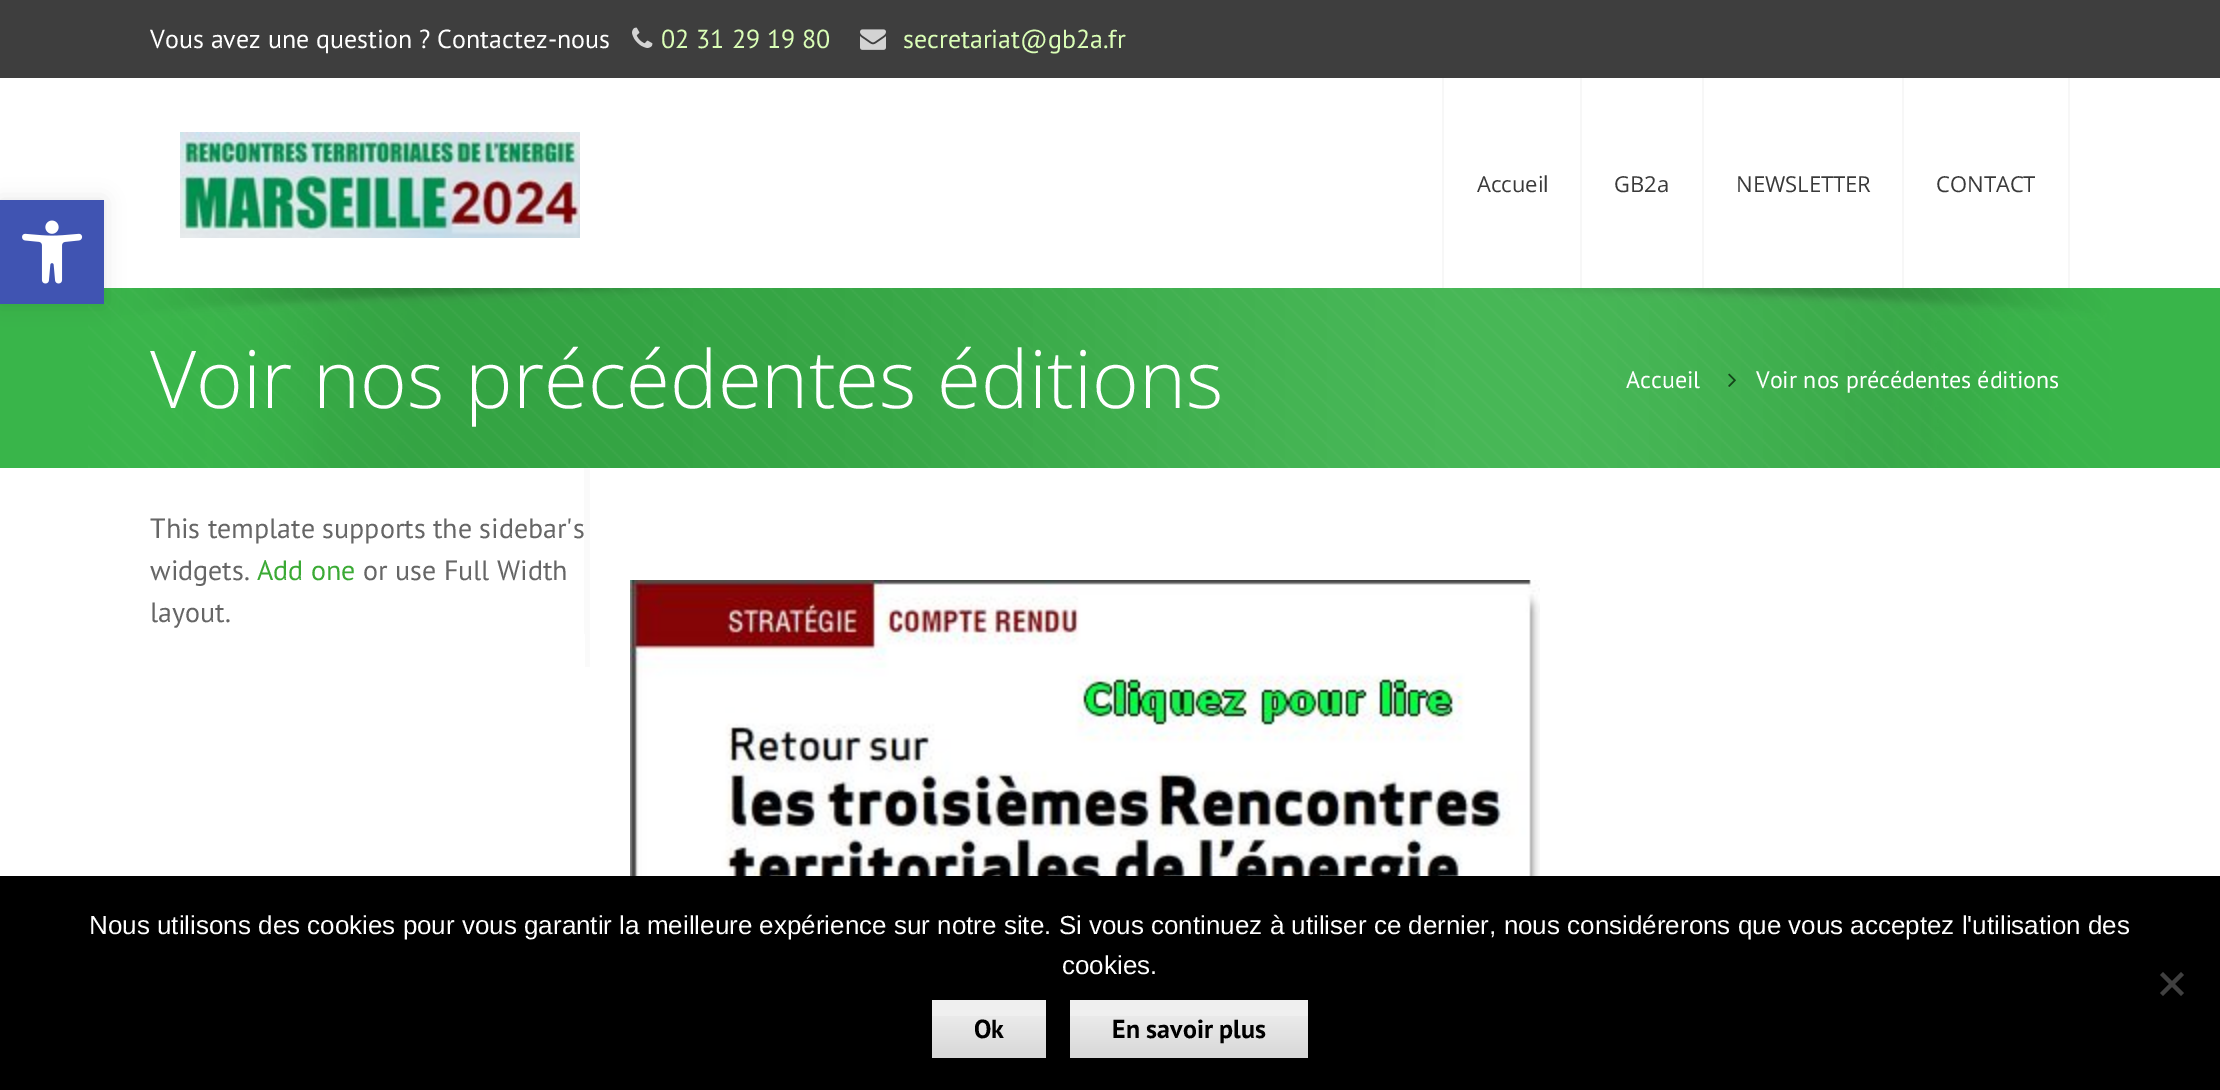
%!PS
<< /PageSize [2220 1090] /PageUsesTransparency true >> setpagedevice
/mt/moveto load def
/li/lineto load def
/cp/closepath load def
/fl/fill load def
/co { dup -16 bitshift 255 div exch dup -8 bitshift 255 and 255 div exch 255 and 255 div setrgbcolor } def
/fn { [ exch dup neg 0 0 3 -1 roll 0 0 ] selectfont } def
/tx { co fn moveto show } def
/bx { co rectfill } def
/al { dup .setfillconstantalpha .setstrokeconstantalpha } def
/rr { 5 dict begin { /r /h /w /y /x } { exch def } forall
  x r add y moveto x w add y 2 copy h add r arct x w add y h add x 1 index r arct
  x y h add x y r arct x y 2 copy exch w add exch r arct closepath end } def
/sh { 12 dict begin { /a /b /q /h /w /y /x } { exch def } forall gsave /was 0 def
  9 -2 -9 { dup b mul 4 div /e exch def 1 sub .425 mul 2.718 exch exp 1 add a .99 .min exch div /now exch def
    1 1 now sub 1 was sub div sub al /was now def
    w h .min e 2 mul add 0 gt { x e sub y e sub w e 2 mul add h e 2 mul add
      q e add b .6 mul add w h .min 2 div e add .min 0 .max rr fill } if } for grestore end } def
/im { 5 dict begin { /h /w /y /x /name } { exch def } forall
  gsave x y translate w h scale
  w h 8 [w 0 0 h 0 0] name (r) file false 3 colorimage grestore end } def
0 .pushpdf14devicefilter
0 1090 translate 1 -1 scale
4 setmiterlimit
0 0 2220 1090 16#FFFFFF bx
0 288 2220 180 16#39B54A bx
(media/5.raw) 88 288 2024 180 im
16#000000 co
0 200 104 104 0 10 .1 sh
0 200 104 104 16#4054B2 bx
(media/1.raw) 22 220 61 64 im
0 0 2220 78 16#3E3E3E bx
(media/2.raw) 632 27 21 21 im
(media/3.raw) 860 29 26 21 im
(media/4.raw) 180 132 400 106 im
2068 78 2 210 16#F7F7F7 bx
1442 78 2 210 16#F7F7F7 bx
1580 78 2 210 16#F7F7F7 bx
1702 78 2 210 16#F7F7F7 bx
1902 78 2 210 16#F7F7F7 bx
(media/6.raw) 1728 373 8 14 im
584 468 6 166 16#FAFAFA bx
585 634 5 33 16#FAFAFA bx
(media/7.raw) 630 580 910 296 im
0 876 2220 214 16#000000 bx
16#404040 co
2181 972 mt 2184 975 li 2163 996 li 2160 993 li cp fl
2160 975 mt 2163 972 li 2184 993 li 2181 996 li cp fl
932 1000 114 58 16#EFEFEF bx
(media/8.raw) 932 1016 114 42 im
1070 1000 238 58 16#EFEFEF bx
(media/9.raw) 1070 1016 238 42 im
(Vous avez une question ? Contactez-nous) 150 48 /PTSans-Regular 26 16#FFFFFF tx
(02 31 29 19 80) 661 48 /PTSans-Regular 26 16#DAFEB6 tx
(secretariat@gb2a.fr) 903 48 /PTSans-Regular 26 16#DAFEB6 tx
(Accueil) 1477 192 /OpenSans-Regular 22 16#393939 tx
(GB2a) 1614 192 /OpenSans-Regular 22 16#393939 tx
(NEWSLETTER) 1736 192 /OpenSans-Regular 22 16#393939 tx
(CONTACT) 1936 192 /OpenSans-Regular 22 16#393939 tx
(Voir nos précédentes éditions) 150 408 /OpenSans-Light 80 16#FFFFFF tx
(Accueil) 1626 388 /PTSans-Regular 24 16#FFFFFF tx
(Voir nos précédentes éditions) 1756 388 /PTSans-Regular 24 16#FFFFFF tx
(This template supports the sidebar's) 150 538 /PTSans-Regular 28 16#666666 tx
(widgets.) 150 580 /PTSans-Regular 28 16#666666 tx
(Add one) 257 580 /PTSans-Regular 28 16#3BAA35 tx
(or use Full Width) 363 580 /PTSans-Regular 28 16#666666 tx
(layout.) 150 622 /PTSans-Regular 28 16#666666 tx
(Nous utilisons des cookies pour vous garantir la meilleure expérience sur notre site. Si vous continuez à utiliser ce dernier, nous considérerons que vous acceptez l'utilisation des) 89 934 /LiberationSans-Regular 26 16#FFFFFF tx
(cookies.) 1062 974 /LiberationSans-Regular 26 16#FFFFFF tx
(Ok) 974 1038 /PTSans-Bold 26 16#000000 tx
(En savoir plus) 1112 1038 /PTSans-Bold 26 16#000000 tx
.poppdf14devicefilter showpage
